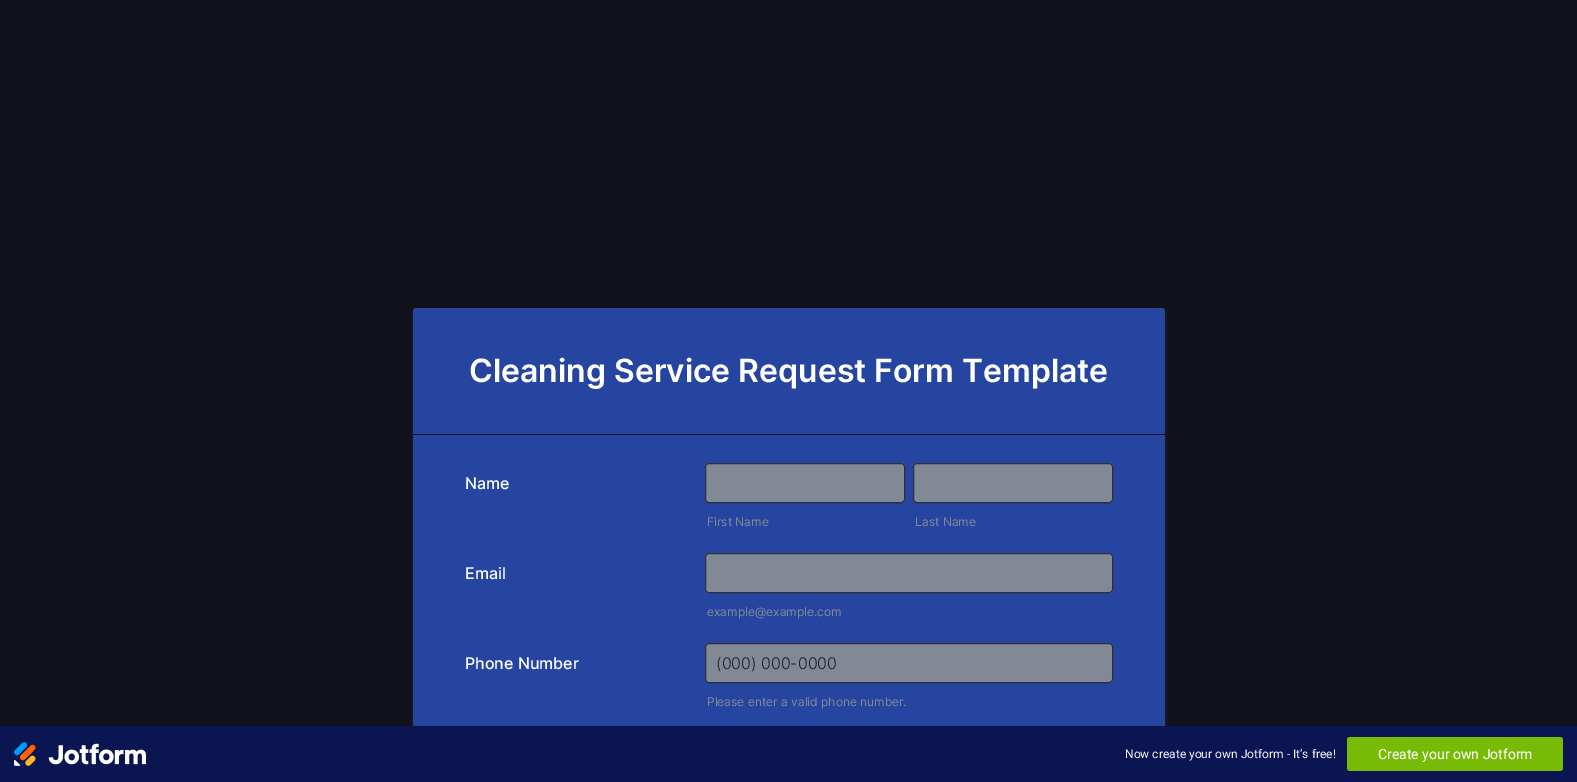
%!PS
<< /PageSize [1577 782] /PageUsesTransparency true >> setpagedevice
/fl/fill load def
/st/stroke load def
/co { dup -16 bitshift 255 div exch dup -8 bitshift 255 and 255 div exch 255 and 255 div setrgbcolor } def
/fn { [ exch dup neg 0 0 3 -1 roll 0 0 ] selectfont } def
/tx { co fn moveto show } def
/bx { co rectfill } def
/al { dup .setfillconstantalpha .setstrokeconstantalpha } def
/rr { 5 dict begin { /r /h /w /y /x } { exch def } forall
  x r add y moveto x w add y 2 copy h add r arct x w add y h add x 1 index r arct
  x y h add x y r arct x y 2 copy exch w add exch r arct closepath end } def
/sh { 12 dict begin { /a /b /q /h /w /y /x } { exch def } forall gsave /was 0 def
  9 -2 -9 { dup b mul 4 div /e exch def 1 sub .425 mul 2.718 exch exp 1 add a .99 .min exch div /now exch def
    1 1 now sub 1 was sub div sub al /was now def
    w h .min e 2 mul add 0 gt { x e sub y e sub w e 2 mul add h e 2 mul add
      q e add b .6 mul add w h .min 2 div e add .min 0 .max rr fill } if } for grestore end } def
/im { 5 dict begin { /h /w /y /x /name } { exch def } forall
  gsave x y translate w h scale
  w h 8 [w 0 0 h 0 0] name (r) file false 3 colorimage grestore end } def
0 .pushpdf14devicefilter
0 782 translate 1 -1 scale
4 setmiterlimit
0 0 1577 782 16#11111B bx
16#57647E co
413 312 752 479 3 2 .21 sh
16#2645A1 co
413 308 752 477 3 rr fl
413 434 752 1 16#11111B bx
16#838895 co
705 463 200 40 4 rr fl
0.75 al
16#11111B co
705.5 463.5 199 39 3.5 rr st
1 al
16#838895 co
913 463 200 40 4 rr fl
0.75 al
16#11111B co
913.5 463.5 199 39 3.5 rr st
1 al
16#838895 co
705 553 408 40 4 rr fl
0.75 al
16#11111B co
705.5 553.5 407 39 3.5 rr st
1 al
16#838895 co
705 643 408 40 4 rr fl
0.75 al
16#11111B co
705.5 643.5 407 39 3.5 rr st
1 al
0 726 1577 56 16#0A1551 bx
(media/1.raw) 14 742 132 24 im
16#78BB07 co
1347 737 216 34 3 rr fl
(Cleaning Service Request Form Template) 469 382 /Inter-SemiBold 32 16#FFFFFF tx
(Name) 465 489 /Inter-Medium 16 16#FFFFFF tx
(First Name) 707 526 /Inter-Regular 12 16#838895 tx
(Last Name) 915 526 /Inter-Regular 12 16#838895 tx
(Email) 465 579 /Inter-Medium 16 16#FFFFFF tx
(example@example.com) 707 616 /Inter-Regular 12 16#838895 tx
(Phone Number) 465 669 /Inter-Medium 16 16#FFFFFF tx
(\(000\) 000-0000) 716 669 /Inter-Light 16 16#1A1F2F tx
(Please enter a valid phone number.) 707 706 /Inter-Regular 12 16#838895 tx
(Now create your own Jotform - It’s free!) 1125 758 /Roboto-Regular 12 16#F3F3FE tx
(Create your own Jotform) 1378 759 /Roboto-Regular 14 16#FFFFFF tx
.poppdf14devicefilter showpage
